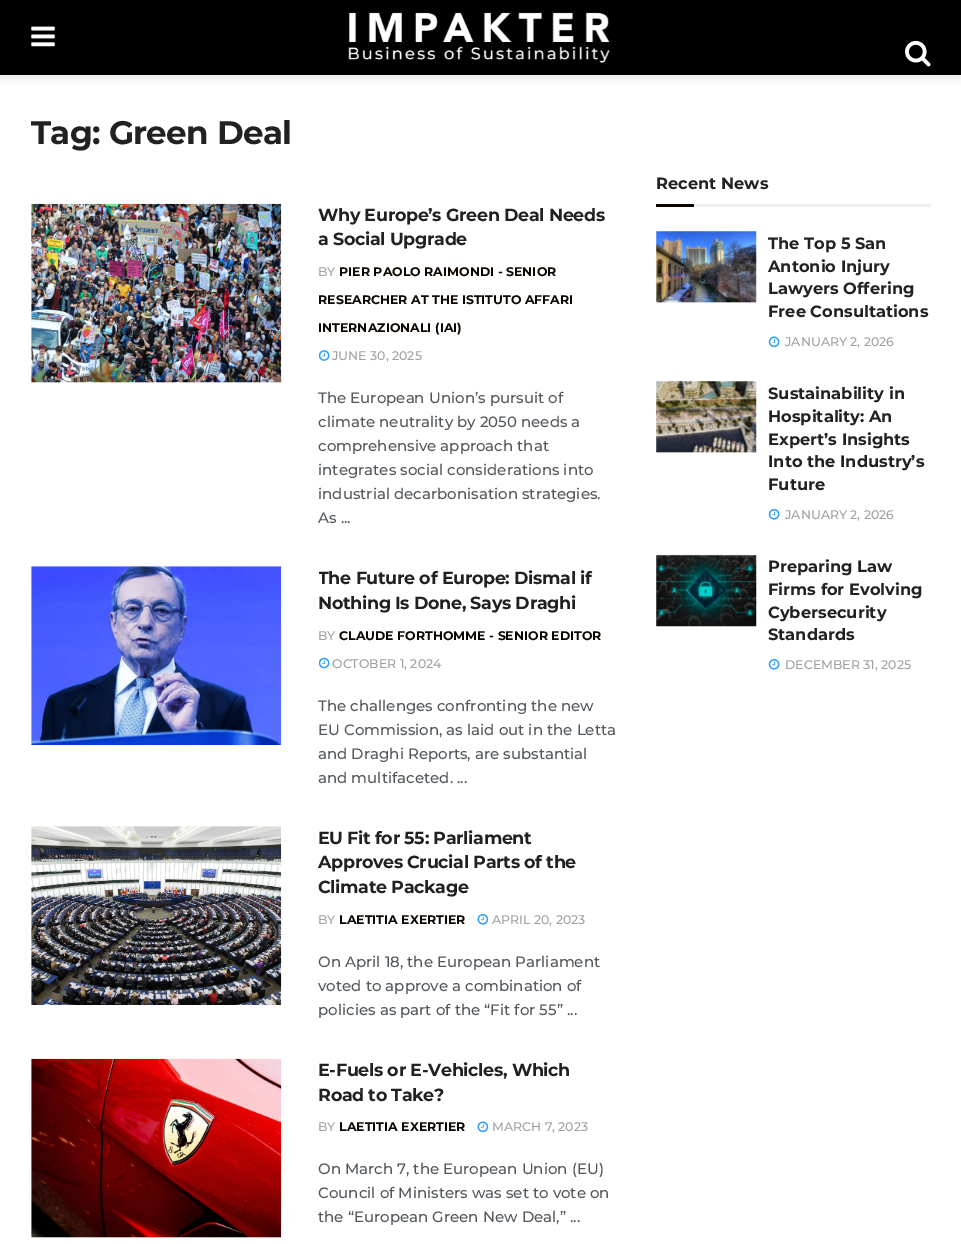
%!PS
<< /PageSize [961 1244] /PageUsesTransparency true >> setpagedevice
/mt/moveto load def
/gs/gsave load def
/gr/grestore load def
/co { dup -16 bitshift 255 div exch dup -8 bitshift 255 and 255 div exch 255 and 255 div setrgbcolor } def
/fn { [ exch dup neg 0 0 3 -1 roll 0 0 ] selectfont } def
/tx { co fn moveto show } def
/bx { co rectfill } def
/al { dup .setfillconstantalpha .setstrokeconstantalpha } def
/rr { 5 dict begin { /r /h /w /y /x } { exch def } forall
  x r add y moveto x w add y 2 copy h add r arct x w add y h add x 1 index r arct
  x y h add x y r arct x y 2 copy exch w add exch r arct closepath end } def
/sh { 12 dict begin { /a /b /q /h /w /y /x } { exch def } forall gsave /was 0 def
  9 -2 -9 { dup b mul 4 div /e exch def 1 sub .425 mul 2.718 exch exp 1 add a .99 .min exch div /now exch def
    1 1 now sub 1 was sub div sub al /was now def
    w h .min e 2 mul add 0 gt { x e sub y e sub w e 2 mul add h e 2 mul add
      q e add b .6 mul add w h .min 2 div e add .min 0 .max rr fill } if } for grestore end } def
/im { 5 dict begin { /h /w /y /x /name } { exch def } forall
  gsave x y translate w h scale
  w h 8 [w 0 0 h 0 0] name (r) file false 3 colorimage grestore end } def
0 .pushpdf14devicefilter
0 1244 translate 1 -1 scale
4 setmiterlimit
0 0 961 1244 16#FFFFFF bx
16#000000 co
0 3 961 75 0 4 .1 sh
0 0 961 75 16#000000 bx
(media/1.raw) 31 26 24 21 im
(media/2.raw) 348 12 262 51 im
(media/3.raw) 905 40 26 27 im
31 204 250 179 16#F7F7F7 bx
(media/4.raw) 31 203 251 180 im
(media/5.raw) 319 350 11 11 im
31 566 250 179 16#F7F7F7 bx
(media/6.raw) 31 566 251 179 im
(media/7.raw) 319 657 11 12 im
31 826 250 179 16#F7F7F7 bx
(media/8.raw) 31 826 251 179 im
(media/9.raw) 477 913 12 12 im
31 1059 250 179 16#F7F7F7 bx
(media/10.raw) 31 1058 251 180 im
(media/11.raw) 477 1121 12 12 im
694 204 237 3 16#EEEEEE bx
656 204 38 3 16#0C0500 bx
656 231 100 72 16#F7F7F7 bx
(media/12.raw) 656 231 101 72 im
(media/13.raw) 768 336 12 12 im
656 381 100 72 16#F7F7F7 bx
(media/14.raw) 656 381 101 72 im
(media/15.raw) 768 508 12 12 im
656 555 100 71 16#F7F7F7 bx
(media/16.raw) 656 554 101 73 im
(media/15.raw) 768 658 12 12 im
/Montserrat-Thin 32.5 fn
16#212121 co
31 144 mt -.6 0 (Tag: Green Deal) ashow
/Montserrat-Thin 17.5 fn
318 221 mt -.35 0 (Why Europe’s Green Deal Needs) ashow
318 245 mt -.35 0 (a Social Upgrade) ashow
(BY) 318 276 /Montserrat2-Thin 12.5 16#A0A0A0 tx
(PIER PAOLO RAIMONDI - SENIOR) 339 276 /Montserrat-Thin 12.5 16#0C0500 tx
(RESEARCHER AT THE ISTITUTO AFFARI) 318 304 /Montserrat-Thin 12.5 16#0C0500 tx
(INTERNAZIONALI \(IAI\)) 318 332 /Montserrat-Thin 12.5 16#0C0500 tx
(JUNE 30, 2025) 332 360 /Montserrat2-Thin 12.5 16#A0A0A0 tx
(The European Union’s pursuit of) 318 403 /Montserrat2-Thin 15 16#53585C tx
(climate neutrality by 2050 needs a) 318 427 /Montserrat2-Thin 15 16#53585C tx
(comprehensive approach that) 318 451 /Montserrat2-Thin 15 16#53585C tx
(integrates social considerations into) 318 475 /Montserrat2-Thin 15 16#53585C tx
(industrial decarbonisation strategies.) 318 499 /Montserrat2-Thin 15 16#53585C tx
(As ...) 318 523 /Montserrat2-Thin 15 16#53585C tx
gs
319 566 300 223 rectclip
/Montserrat-Thin 17.5 fn
16#212121 co
318 584 mt -.35 0 (The Future of Europe: Dismal if) ashow
gr
/Montserrat-Thin 17.5 fn
16#212121 co
318 609 mt -.35 0 (Nothing Is Done, Says Draghi) ashow
(BY) 318 640 /Montserrat2-Thin 12.5 16#A0A0A0 tx
(CLAUDE FORTHOMME - SENIOR EDITOR) 339 640 /Montserrat-Thin 12.5 16#0C0500 tx
(OCTOBER 1, 2024) 332 668 /Montserrat2-Thin 12.5 16#A0A0A0 tx
(The challenges confronting the new) 318 711 /Montserrat2-Thin 15 16#53585C tx
(EU Commission, as laid out in the Letta) 318 735 /Montserrat2-Thin 15 16#53585C tx
(and Draghi Reports, are substantial) 318 759 /Montserrat2-Thin 15 16#53585C tx
(and multifaceted. ...) 318 783 /Montserrat2-Thin 15 16#53585C tx
/Montserrat-Thin 17.5 fn
16#212121 co
318 844 mt -.35 0 (EU Fit for 55: Parliament) ashow
318 868 mt -.35 0 (Approves Crucial Parts of the) ashow
318 893 mt -.35 0 (Climate Package) ashow
(BY) 318 924 /Montserrat2-Thin 12.5 16#A0A0A0 tx
(LAETITIA EXERTIER) 339 924 /Montserrat-Thin 12.5 16#0C0500 tx
(APRIL 20, 2023) 492 924 /Montserrat2-Thin 12.5 16#A0A0A0 tx
(On April 18, the European Parliament) 318 967 /Montserrat2-Thin 15 16#53585C tx
(voted to approve a combination of) 318 991 /Montserrat2-Thin 15 16#53585C tx
(policies as part of the “Fit for 55” ...) 318 1015 /Montserrat2-Thin 15 16#53585C tx
/Montserrat-Thin 17.5 fn
16#212121 co
318 1076 mt -.35 0 (E-Fuels or E-Vehicles, Which) ashow
318 1101 mt -.35 0 (Road to Take?) ashow
(BY) 318 1131 /Montserrat2-Thin 12.5 16#A0A0A0 tx
(LAETITIA EXERTIER) 339 1131 /Montserrat-Thin 12.5 16#0C0500 tx
(MARCH 7, 2023) 492 1131 /Montserrat2-Thin 12.5 16#A0A0A0 tx
(On March 7, the European Union \(EU\)) 318 1174 /Montserrat2-Thin 15 16#53585C tx
(Council of Ministers was set to vote on) 318 1198 /Montserrat2-Thin 15 16#53585C tx
(the “European Green New Deal,” ...) 318 1222 /Montserrat2-Thin 15 16#53585C tx
(Recent News) 656 189 /Montserrat-Thin 16.25 16#212121 tx
(The Top 5 San) 768 249 /Montserrat-Thin 16.25 16#212121 tx
(Antonio Injury) 768 272 /Montserrat-Thin 16.25 16#212121 tx
(Lawyers Offering) 768 294 /Montserrat-Thin 16.25 16#212121 tx
(Free Consultations) 768 317 /Montserrat-Thin 16.25 16#212121 tx
(JANUARY 2, 2026) 785 346 /Montserrat2-Thin 12.5 16#A0A0A0 tx
(Sustainability in) 768 399 /Montserrat-Thin 16.25 16#212121 tx
(Hospitality: An) 768 422 /Montserrat-Thin 16.25 16#212121 tx
(Expert’s Insights) 768 445 /Montserrat-Thin 16.25 16#212121 tx
(Into the Industry’s) 768 467 /Montserrat-Thin 16.25 16#212121 tx
(Future) 768 490 /Montserrat-Thin 16.25 16#212121 tx
(JANUARY 2, 2026) 785 519 /Montserrat2-Thin 12.5 16#A0A0A0 tx
(Preparing Law) 768 572 /Montserrat-Thin 16.25 16#212121 tx
(Firms for Evolving) 768 595 /Montserrat-Thin 16.25 16#212121 tx
(Cybersecurity) 768 618 /Montserrat-Thin 16.25 16#212121 tx
(Standards) 768 640 /Montserrat-Thin 16.25 16#212121 tx
(DECEMBER 31, 2025) 785 669 /Montserrat2-Thin 12.5 16#A0A0A0 tx
.poppdf14devicefilter showpage
